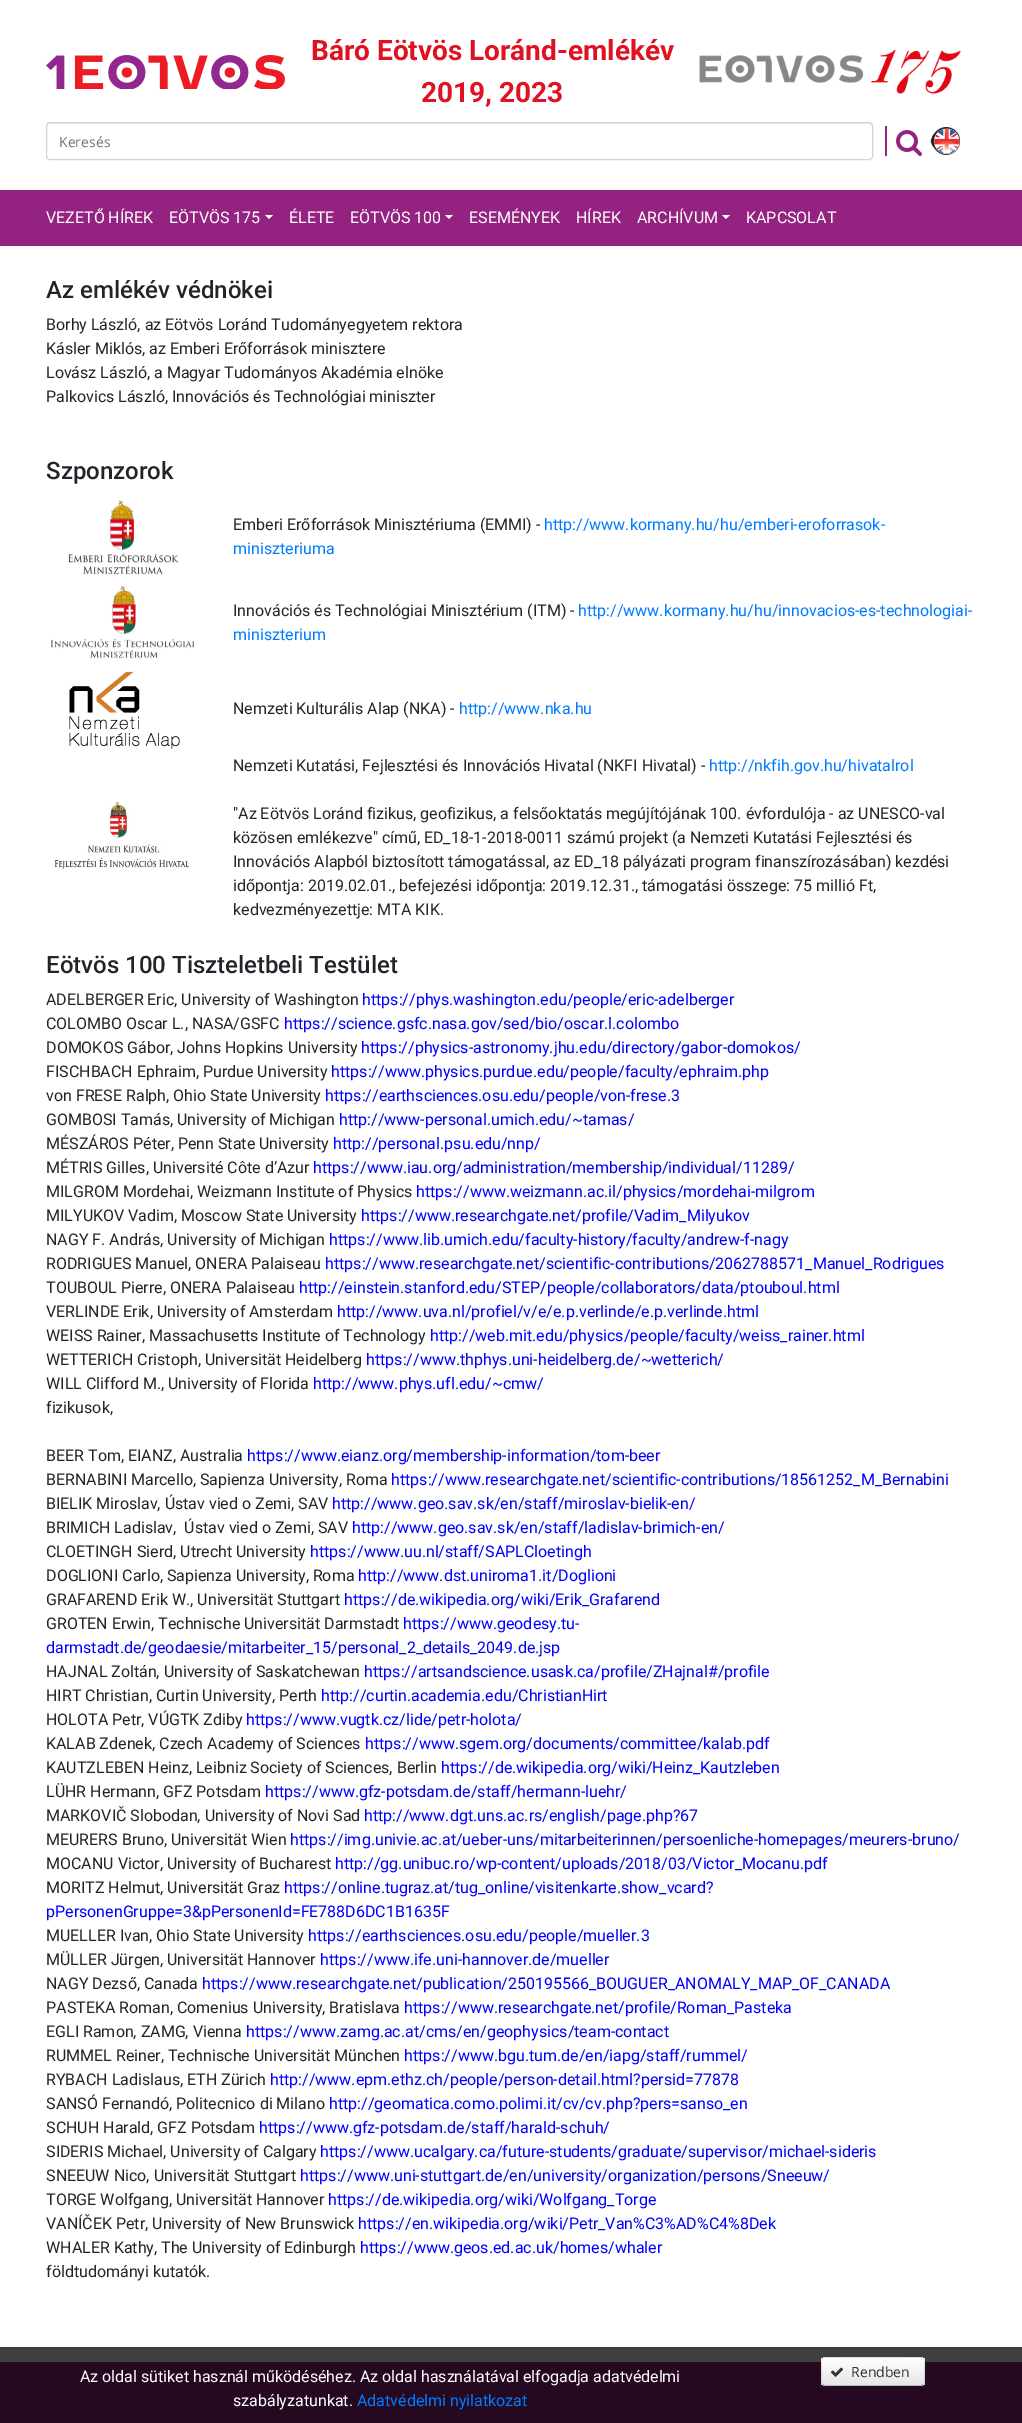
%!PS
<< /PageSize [1022 2423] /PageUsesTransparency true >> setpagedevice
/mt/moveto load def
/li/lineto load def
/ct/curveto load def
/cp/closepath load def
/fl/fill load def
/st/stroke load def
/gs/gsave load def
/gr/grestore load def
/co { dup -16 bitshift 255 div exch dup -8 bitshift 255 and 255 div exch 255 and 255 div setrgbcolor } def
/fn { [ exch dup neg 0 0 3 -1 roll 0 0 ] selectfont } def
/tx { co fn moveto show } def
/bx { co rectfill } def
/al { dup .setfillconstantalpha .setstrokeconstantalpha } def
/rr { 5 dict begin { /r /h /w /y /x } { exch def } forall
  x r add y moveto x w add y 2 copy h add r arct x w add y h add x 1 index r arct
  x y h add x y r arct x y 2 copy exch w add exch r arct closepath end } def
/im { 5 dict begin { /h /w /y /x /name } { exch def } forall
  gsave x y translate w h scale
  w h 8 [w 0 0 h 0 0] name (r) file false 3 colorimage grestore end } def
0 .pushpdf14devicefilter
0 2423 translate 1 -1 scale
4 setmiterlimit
0 0 1022 2423 16#FFFFFF bx
0 2347 1022 15 16#404040 bx
(media/1.raw) 46 55 239 34 im
(media/2.raw) 699 50 262 44 im
16#ECECEC co
50 124 mt 869 124 li 871 124 872 125 872 127 ct 872 125 871 123 869 123 ct 50 123 li 48 123 47 125 47 127 ct 47 125 48 124 50 124 ct cp fl
16#CED4DA co
46.5 122.5 826 37 3.5 rr st
885 126 2 30 16#942280 bx
(media/3.raw) 896 130 26 26 im
(media/4.raw) 930 127 30 28 im
0 190 1022 56 16#942280 bx
16#FFFFFF co
265 215 mt 273 215 li 269 219 li cp fl
445 215 mt 453 215 li 449 219 li cp fl
722 215 mt 730 215 li 726 219 li cp fl
(media/5.raw) 68 500 111 75 im
(media/6.raw) 51 586 144 73 im
(media/7.raw) 69 671 111 78 im
(media/8.raw) 54 801 135 69 im
0 2362 1022 61 16#250920 bx
16#F5F5F5 co
821 2357 104 29 4 rr fl
gs
821 2357 104 29 4 rr clip newpath
gs 821 2358 mt 925 2358 li 925 2385 li 821 2385 li cp clip newpath
<< /ShadingType 2 /ColorSpace /DeviceRGB /Coords [873 2358 873 2385] /Extend [true true] /Function << /FunctionType 2 /Domain [0 1] /C0 [1 1 1] /C1 [.902 .902 .902] /N 1 >> >> shfill gr
gr
0.25 al
16#000000 co
923.5 2384.5 mt 921.5 2385.5 li 841 2385.5 li 825 2385.5 li 822.5 2384.5 li st
0.1 al
822.5 2384.5 mt 820.5 2382.5 821.5 2377.5 821.5 2375 ct 821.5 2354 818 2357.5 841 2357.5 ct 905 2357.5 li 928 2357.5 924.5 2354 924.5 2375 ct 924.5 2377.5 925.5 2382.5 923.5 2384.5 ct st
1 al
(media/9.raw) 831 2367 12 10 im
(Báró Eötvös Loránd-emlékév) 311 60 /Roboto-Bold 28 16#E01120 tx
(2019, 2023) 421 102 /Roboto-Bold 28 16#E01120 tx
(Keresés) 59 147 /OpenSans-Regular 14 16#6C757D tx
(VEZETŐ HÍREK) 46 223 /Roboto-Regular 16 16#FFFFFF tx
(EÖTVÖS 175) 169 223 /Roboto-Regular 16 16#FFFFFF tx
(ÉLETE) 289 223 /Roboto-Regular 16 16#FFFFFF tx
(EÖTVÖS 100) 350 223 /Roboto-Regular 16 16#FFFFFF tx
(ESEMÉNYEK) 469 223 /Roboto-Regular 16 16#FFFFFF tx
(HÍREK) 576 223 /Roboto-Regular 16 16#FFFFFF tx
(ARCHÍVUM) 637 223 /Roboto-Regular 16 16#FFFFFF tx
(KAPCSOLAT) 746 223 /Roboto-Regular 16 16#FFFFFF tx
(Az emlékév védnökei) 46 298 /Roboto-Medium 24 16#212529 tx
(Borhy László, az Eötvös Loránd Tudományegyetem rektora) 46 330 /Roboto-Regular 16 16#212529 tx
(Kásler Miklós, az Emberi Erőforrások minisztere) 46 354 /Roboto-Regular 16 16#212529 tx
(Lovász László, a Magyar Tudományos Akadémia elnöke) 46 378 /Roboto-Regular 16 16#212529 tx
(Palkovics László, Innovációs és Technológiai miniszter) 46 402 /Roboto-Regular 16 16#212529 tx
(Szponzorok) 46 479 /Roboto-Medium 24 16#212529 tx
(Emberi Erőforrások Minisztériuma \(EMMI\) -) 233 530 /Roboto-Regular 16 16#212529 tx
(http://www.kormany.hu/hu/emberi-eroforrasok-) 544 530 /Roboto-Regular 16 16#007BFF tx
(miniszteriuma) 233 554 /Roboto-Regular 16 16#007BFF tx
(Innovációs és Technológiai Minisztérium \(ITM\) -) 233 616 /Roboto-Regular 16 16#212529 tx
(http://www.kormany.hu/hu/innovacios-es-technologiai-) 578 616 /Roboto-Regular 16 16#007BFF tx
(miniszterium) 233 640 /Roboto-Regular 16 16#007BFF tx
(Nemzeti Kulturális Alap \(NKA\) -) 233 714 /Roboto-Regular 16 16#212529 tx
(http://www.nka.hu) 459 714 /Roboto-Regular 16 16#007BFF tx
(Nemzeti Kutatási, Fejlesztési és Innovációs Hivatal \(NKFI Hivatal\) -) 233 771 /Roboto-Regular 16 16#212529 tx
(http://nkfih.gov.hu/hivatalrol) 709 771 /Roboto-Regular 16 16#007BFF tx
("Az Eötvös Loránd fizikus, geofizikus, a felsőoktatás megújítójának 100. évfordulója - az UNESCO-val) 233 819 /Roboto-Regular 16 16#212529 tx
(közösen emlékezve" című, ED_18-1-2018-0011 számú projekt \(a Nemzeti Kutatási Fejlesztési és) 233 843 /Roboto-Regular 16 16#212529 tx
(Innovációs Alapból biztosított támogatással, az ED_18 pályázati program finanszírozásában\) kezdési) 233 867 /Roboto-Regular 16 16#212529 tx
(időpontja: 2019.02.01., befejezési időpontja: 2019.12.31., támogatási összege: 75 millió Ft,) 233 891 /Roboto-Regular 16 16#212529 tx
(kedvezményezettje: MTA KIK.) 233 915 /Roboto-Regular 16 16#212529 tx
(Eötvös 100 Tiszteletbeli Testület) 46 973 /Roboto-Medium 24 16#212529 tx
(ADELBERGER Eric, University of Washington) 46 1005 /Roboto-Regular 16 16#212529 tx
(https://phys.washington.edu/people/eric-adelberger) 362 1005 /Roboto-Regular 16 16#0000FF tx
(COLOMBO Oscar L., NASA/GSFC) 46 1029 /Roboto-Regular 16 16#212529 tx
(https://science.gsfc.nasa.gov/sed/bio/oscar.l.colombo) 284 1029 /Roboto-Regular 16 16#0000FF tx
(DOMOKOS Gábor, Johns Hopkins University) 46 1053 /Roboto-Regular 16 16#212529 tx
(https://physics-astronomy.jhu.edu/directory/gabor-domokos/) 361 1053 /Roboto-Regular 16 16#0000FF tx
(FISCHBACH Ephraim, Purdue University) 46 1077 /Roboto-Regular 16 16#212529 tx
(https://www.physics.purdue.edu/people/faculty/ephraim.php) 331 1077 /Roboto-Regular 16 16#0000FF tx
(von FRESE Ralph, Ohio State University) 46 1101 /Roboto-Regular 16 16#212529 tx
(https://earthsciences.osu.edu/people/von-frese.3) 325 1101 /Roboto-Regular 16 16#0000FF tx
(GOMBOSI Tamás, University of Michigan) 46 1125 /Roboto-Regular 16 16#212529 tx
(http://www-personal.umich.edu/~tamas/) 339 1125 /Roboto-Regular 16 16#0000FF tx
(MÉSZÁROS Péter, Penn State University) 46 1149 /Roboto-Regular 16 16#212529 tx
(http://personal.psu.edu/nnp/) 333 1149 /Roboto-Regular 16 16#0000FF tx
(MÉTRIS Gilles, Université Côte d’Azur) 46 1173 /Roboto-Regular 16 16#212529 tx
(https://www.iau.org/administration/membership/individual/11289/) 313 1173 /Roboto-Regular 16 16#0000FF tx
(MILGROM Mordehai, Weizmann Institute of Physics) 46 1197 /Roboto-Regular 16 16#212529 tx
(https://www.weizmann.ac.il/physics/mordehai-milgrom) 416 1197 /Roboto-Regular 16 16#0000FF tx
(MILYUKOV Vadim, Moscow State University) 46 1221 /Roboto-Regular 16 16#212529 tx
(https://www.researchgate.net/profile/Vadim_Milyukov) 361 1221 /Roboto-Regular 16 16#0000FF tx
(NAGY F. András, University of Michigan) 46 1245 /Roboto-Regular 16 16#212529 tx
(https://www.lib.umich.edu/faculty-history/faculty/andrew-f-nagy) 329 1245 /Roboto-Regular 16 16#0000FF tx
(RODRIGUES Manuel, ONERA Palaiseau) 46 1269 /Roboto-Regular 16 16#212529 tx
(https://www.researchgate.net/scientific-contributions/2062788571_Manuel_Rodrigues) 325 1269 /Roboto-Regular 16 16#0000FF tx
(TOUBOUL Pierre, ONERA Palaiseau) 46 1293 /Roboto-Regular 16 16#212529 tx
(http://einstein.stanford.edu/STEP/people/collaborators/data/ptouboul.html) 299 1293 /Roboto-Regular 16 16#0000FF tx
(VERLINDE Erik, University of Amsterdam) 46 1317 /Roboto-Regular 16 16#212529 tx
(http://www.uva.nl/profiel/v/e/e.p.verlinde/e.p.verlinde.html) 337 1317 /Roboto-Regular 16 16#0000FF tx
(WEISS Rainer, Massachusetts Institute of Technology) 46 1341 /Roboto-Regular 16 16#212529 tx
(http://web.mit.edu/physics/people/faculty/weiss_rainer.html) 430 1341 /Roboto-Regular 16 16#0000FF tx
(WETTERICH Cristoph, Universität Heidelberg) 46 1365 /Roboto-Regular 16 16#212529 tx
(https://www.thphys.uni-heidelberg.de/~wetterich/) 366 1365 /Roboto-Regular 16 16#0000FF tx
(WILL Clifford M., University of Florida) 46 1389 /Roboto-Regular 16 16#212529 tx
(http://www.phys.ufl.edu/~cmw/) 313 1389 /Roboto-Regular 16 16#0000FF tx
(fizikusok,) 46 1413 /Roboto-Regular 16 16#212529 tx
(BEER Tom, EIANZ, Australia) 46 1461 /Roboto-Regular 16 16#212529 tx
(https://www.eianz.org/membership-information/tom-beer) 247 1461 /Roboto-Regular 16 16#0000FF tx
(BERNABINI Marcello, Sapienza University, Roma) 46 1485 /Roboto-Regular 16 16#212529 tx
(https://www.researchgate.net/scientific-contributions/18561252_M_Bernabini) 391 1485 /Roboto-Regular 16 16#0000FF tx
(BIELIK Miroslav, Ústav vied o Zemi, SAV) 46 1509 /Roboto-Regular 16 16#212529 tx
(http://www.geo.sav.sk/en/staff/miroslav-bielik-en/) 332 1509 /Roboto-Regular 16 16#0000FF tx
(BRIMICH Ladislav,  Ústav vied o Zemi, SAV) 46 1533 /Roboto-Regular 16 16#212529 tx
(http://www.geo.sav.sk/en/staff/ladislav-brimich-en/) 352 1533 /Roboto-Regular 16 16#0000FF tx
(CLOETINGH Sierd, Utrecht University) 46 1557 /Roboto-Regular 16 16#212529 tx
(https://www.uu.nl/staff/SAPLCloetingh) 310 1557 /Roboto-Regular 16 16#0000FF tx
(DOGLIONI Carlo, Sapienza University, Roma) 46 1581 /Roboto-Regular 16 16#212529 tx
(http://www.dst.uniroma1.it/Doglioni) 358 1581 /Roboto-Regular 16 16#0000FF tx
(GRAFAREND Erik W., Universität Stuttgart) 46 1605 /Roboto-Regular 16 16#212529 tx
(https://de.wikipedia.org/wiki/Erik_Grafarend) 344 1605 /Roboto-Regular 16 16#0000FF tx
(GROTEN Erwin, Technische Universität Darmstadt) 46 1629 /Roboto-Regular 16 16#212529 tx
(https://www.geodesy.tu-) 403 1629 /Roboto-Regular 16 16#0000FF tx
(darmstadt.de/geodaesie/mitarbeiter_15/personal_2_details_2049.de.jsp) 46 1653 /Roboto-Regular 16 16#0000FF tx
(HAJNAL Zoltán, University of Saskatchewan) 46 1677 /Roboto-Regular 16 16#212529 tx
(https://artsandscience.usask.ca/profile/ZHajnal#/profile) 364 1677 /Roboto-Regular 16 16#0000FF tx
(HIRT Christian, Curtin University, Perth) 46 1701 /Roboto-Regular 16 16#212529 tx
(http://curtin.academia.edu/ChristianHirt) 321 1701 /Roboto-Regular 16 16#0000FF tx
(HOLOTA Petr, VÚGTK Zdiby) 46 1725 /Roboto-Regular 16 16#212529 tx
(https://www.vugtk.cz/lide/petr-holota/) 246 1725 /Roboto-Regular 16 16#0000FF tx
(KALAB Zdenek, Czech Academy of Sciences) 46 1749 /Roboto-Regular 16 16#212529 tx
(https://www.sgem.org/documents/committee/kalab.pdf) 365 1749 /Roboto-Regular 16 16#0000FF tx
(KAUTZLEBEN Heinz, Leibniz Society of Sciences, Berlin) 46 1773 /Roboto-Regular 16 16#212529 tx
(https://de.wikipedia.org/wiki/Heinz_Kautzleben) 441 1773 /Roboto-Regular 16 16#0000FF tx
(LÜHR Hermann, GFZ Potsdam) 46 1797 /Roboto-Regular 16 16#212529 tx
(https://www.gfz-potsdam.de/staff/hermann-luehr/) 265 1797 /Roboto-Regular 16 16#0000FF tx
(MARKOVIČ Slobodan, University of Novi Sad) 46 1821 /Roboto-Regular 16 16#212529 tx
(http://www.dgt.uns.ac.rs/english/page.php?67) 364 1821 /Roboto-Regular 16 16#0000FF tx
(MEURERS Bruno, Universität Wien) 46 1845 /Roboto-Regular 16 16#212529 tx
(https://img.univie.ac.at/ueber-uns/mitarbeiterinnen/persoenliche-homepages/meurers-bruno/) 290 1845 /Roboto-Regular 16 16#0000FF tx
(MOCANU Victor, University of Bucharest) 46 1869 /Roboto-Regular 16 16#212529 tx
(http://gg.unibuc.ro/wp-content/uploads/2018/03/Victor_Mocanu.pdf) 335 1869 /Roboto-Regular 16 16#0000FF tx
(MORITZ Helmut, Universität Graz) 46 1893 /Roboto-Regular 16 16#212529 tx
(https://online.tugraz.at/tug_online/visitenkarte.show_vcard?) 284 1893 /Roboto-Regular 16 16#0000FF tx
(pPersonenGruppe=3&pPersonenId=FE788D6DC1B1635F) 46 1917 /Roboto-Regular 16 16#0000FF tx
(MUELLER Ivan, Ohio State University) 46 1941 /Roboto-Regular 16 16#212529 tx
(https://earthsciences.osu.edu/people/mueller.3) 308 1941 /Roboto-Regular 16 16#0000FF tx
(MÜLLER Jürgen, Universität Hannover) 46 1965 /Roboto-Regular 16 16#212529 tx
(https://www.ife.uni-hannover.de/mueller) 320 1965 /Roboto-Regular 16 16#0000FF tx
(NAGY Dezső, Canada) 46 1989 /Roboto-Regular 16 16#212529 tx
(https://www.researchgate.net/publication/250195566_BOUGUER_ANOMALY_MAP_OF_CANADA) 202 1989 /Roboto-Regular 16 16#0000FF tx
(PASTEKA Roman, Comenius University, Bratislava) 46 2013 /Roboto-Regular 16 16#212529 tx
(https://www.researchgate.net/profile/Roman_Pasteka) 404 2013 /Roboto-Regular 16 16#0000FF tx
(EGLI Ramon, ZAMG, Vienna) 46 2037 /Roboto-Regular 16 16#212529 tx
(https://www.zamg.ac.at/cms/en/geophysics/team-contact) 246 2037 /Roboto-Regular 16 16#0000FF tx
(RUMMEL Reiner, Technische Universität München) 46 2061 /Roboto-Regular 16 16#212529 tx
(https://www.bgu.tum.de/en/iapg/staff/rummel/) 404 2061 /Roboto-Regular 16 16#0000FF tx
(RYBACH Ladislaus, ETH Zürich) 46 2085 /Roboto-Regular 16 16#212529 tx
(http://www.epm.ethz.ch/people/person-detail.html?persid=77878) 270 2085 /Roboto-Regular 16 16#0000FF tx
(SANSÓ Fernandó, Politecnico di Milano) 46 2109 /Roboto-Regular 16 16#212529 tx
(http://geomatica.como.polimi.it/cv/cv.php?pers=sanso_en) 329 2109 /Roboto-Regular 16 16#0000FF tx
(SCHUH Harald, GFZ Potsdam) 46 2133 /Roboto-Regular 16 16#212529 tx
(https://www.gfz-potsdam.de/staff/harald-schuh/) 259 2133 /Roboto-Regular 16 16#0000FF tx
(SIDERIS Michael, University of Calgary) 46 2157 /Roboto-Regular 16 16#212529 tx
(https://www.ucalgary.ca/future-students/graduate/supervisor/michael-sideris) 320 2157 /Roboto-Regular 16 16#0000FF tx
(SNEEUW Nico, Universität Stuttgart) 46 2181 /Roboto-Regular 16 16#212529 tx
(https://www.uni-stuttgart.de/en/university/organization/persons/Sneeuw/) 300 2181 /Roboto-Regular 16 16#0000FF tx
(TORGE Wolfgang, Universität Hannover) 46 2205 /Roboto-Regular 16 16#212529 tx
(https://de.wikipedia.org/wiki/Wolfgang_Torge) 328 2205 /Roboto-Regular 16 16#0000FF tx
(VANÍČEK Petr, University of New Brunswick) 46 2229 /Roboto-Regular 16 16#212529 tx
(https://en.wikipedia.org/wiki/Petr_Van%C3%AD%C4%8Dek) 358 2229 /Roboto-Regular 16 16#0000FF tx
(WHALER Kathy, The University of Edinburgh) 46 2253 /Roboto-Regular 16 16#212529 tx
(https://www.geos.ed.ac.uk/homes/whaler) 360 2253 /Roboto-Regular 16 16#0000FF tx
(földtudományi kutatók.) 46 2277 /Roboto-Regular 16 16#212529 tx
(Az oldal sütiket használ működéséhez. Az oldal használatával elfogadja adatvédelmi) 80 2382 /Roboto-Regular 16 16#FFFFFF tx
(szabályzatunkat.) 233 2406 /Roboto-Regular 16 16#FFFFFF tx
(Adatvédelmi nyilatkozat) 357 2406 /Roboto-Regular 16 16#007BFF tx
(Rendben) 851 2377 /OpenSans-Regular 14 16#333333 tx
.poppdf14devicefilter showpage
